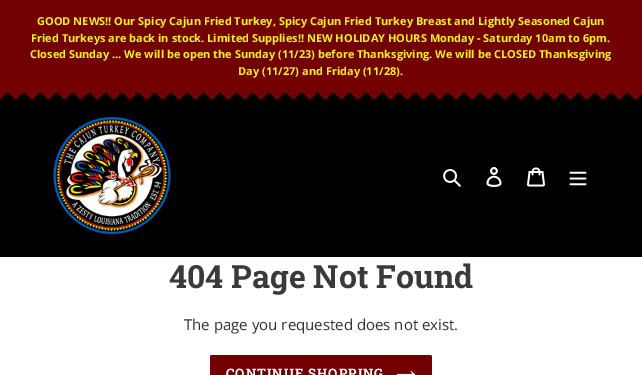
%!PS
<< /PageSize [642 375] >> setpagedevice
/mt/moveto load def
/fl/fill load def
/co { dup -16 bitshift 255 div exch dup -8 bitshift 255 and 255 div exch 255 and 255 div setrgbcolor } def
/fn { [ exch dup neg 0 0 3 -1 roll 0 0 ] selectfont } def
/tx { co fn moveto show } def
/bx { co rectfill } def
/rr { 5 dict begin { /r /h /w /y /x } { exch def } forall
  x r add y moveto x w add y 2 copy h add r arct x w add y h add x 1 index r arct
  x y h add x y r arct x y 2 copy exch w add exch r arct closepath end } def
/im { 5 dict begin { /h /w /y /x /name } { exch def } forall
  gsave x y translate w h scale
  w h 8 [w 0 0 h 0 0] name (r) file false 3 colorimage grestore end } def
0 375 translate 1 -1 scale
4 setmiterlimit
0 0 642 375 16#FFFFFF bx
0 0 642 91 16#730001 bx
(media/1.raw) 0 91 642 9 im
0 100 642 157 16#000000 bx
(media/2.raw) 53 116 118 119 im
(media/3.raw) 443 169 18 18 im
(media/4.raw) 486 167 16 20 im
(media/5.raw) 527 167 18 20 im
(media/6.raw) 569 171 18 15 im
16#730001 co
210 355 222 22 2 rr fl
(media/7.raw) 396 370 20 5 im
(GOOD NEWS!! Our Spicy Cajun Fried Turkey, Spicy Cajun Fried Turkey Breast and Lightly Seasoned Cajun) 37 25 /OpenSans-Bold 11 16#F4F129 tx
(Fried Turkeys are back in stock. Limited Supplies!! NEW HOLIDAY HOURS Monday - Saturday 10am to 6pm.) 31 42 /OpenSans-Bold 11 16#F4F129 tx
(Closed Sunday ... We will be open the Sunday \(11/23\) before Thanksgiving. We will be CLOSED Thanksgiving) 30 58 /OpenSans-Bold 11 16#F4F129 tx
(Day \(11/27\) and Friday \(11/28\).) 238 75 /OpenSans-Bold 11 16#F4F129 tx
(404 Page Not Found) 169 288 /RobotoSlab-Bold 32 16#3A3A3A tx
(The page you requested does not exist.) 184 330 /OpenSans-Regular 15 16#333232 tx
/RobotoSlab-Bold 13.1 fn
16#FFFFFF co
226 378 mt 1 0 (CONTINUE SHOPPING) ashow
showpage
